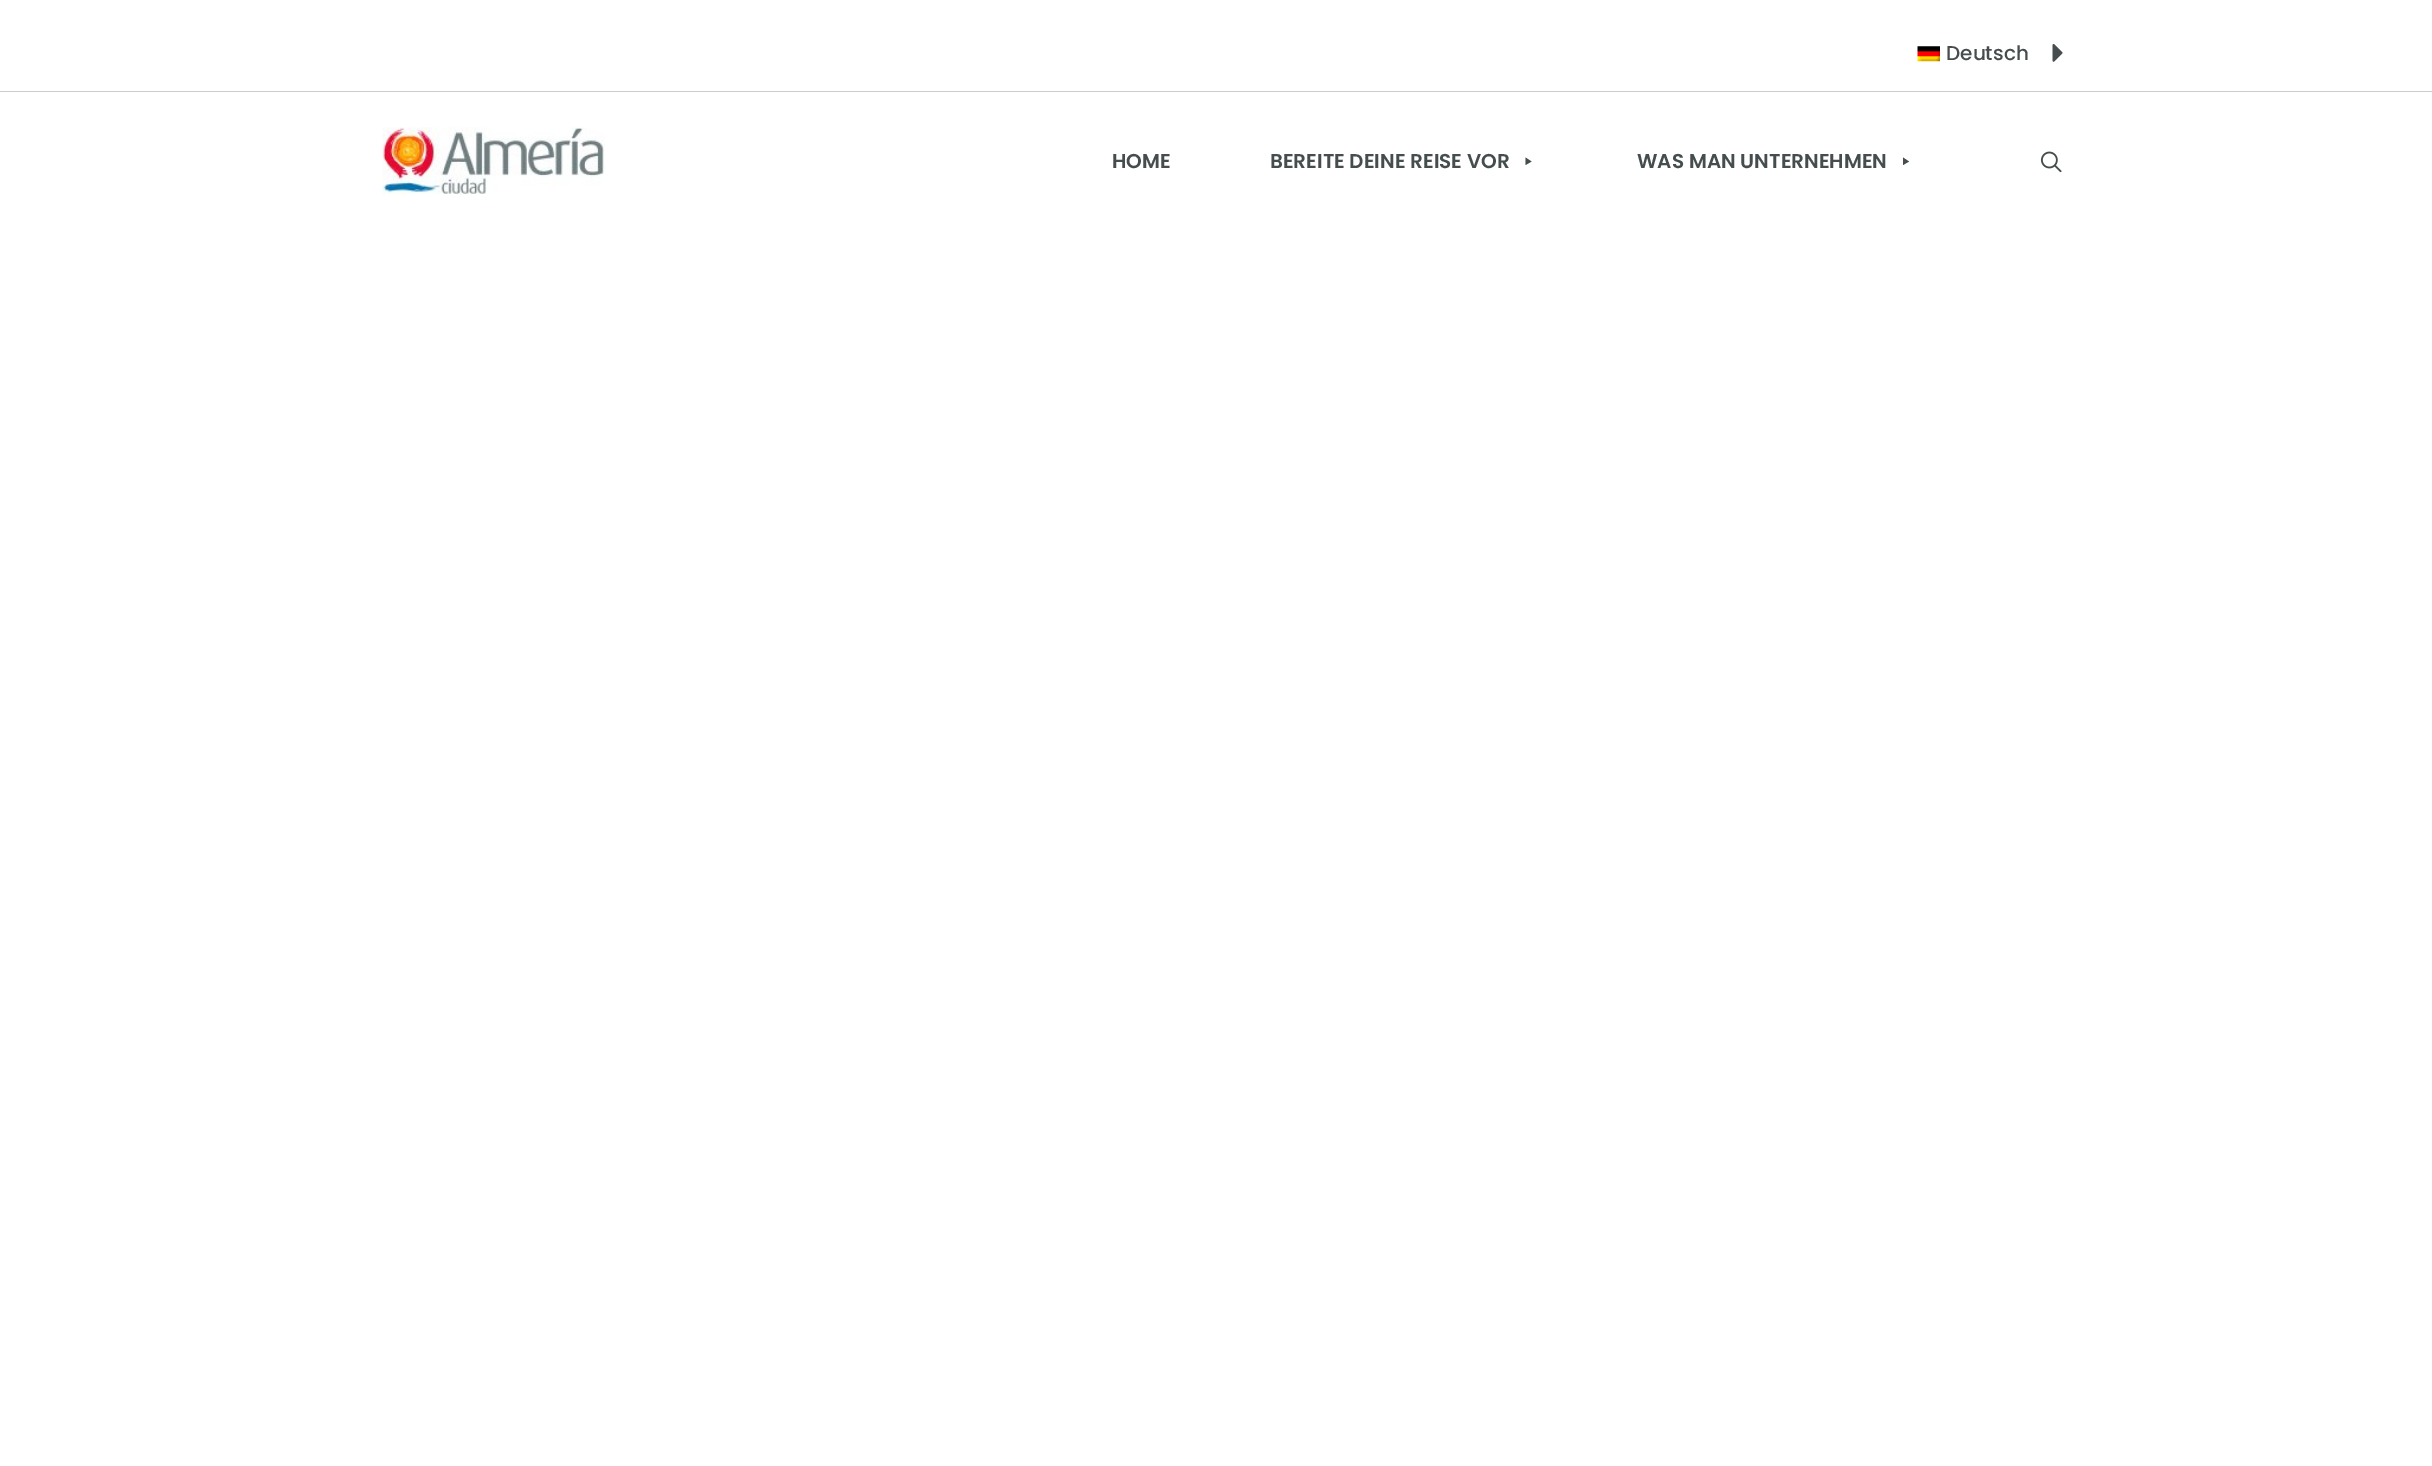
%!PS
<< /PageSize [2432 1466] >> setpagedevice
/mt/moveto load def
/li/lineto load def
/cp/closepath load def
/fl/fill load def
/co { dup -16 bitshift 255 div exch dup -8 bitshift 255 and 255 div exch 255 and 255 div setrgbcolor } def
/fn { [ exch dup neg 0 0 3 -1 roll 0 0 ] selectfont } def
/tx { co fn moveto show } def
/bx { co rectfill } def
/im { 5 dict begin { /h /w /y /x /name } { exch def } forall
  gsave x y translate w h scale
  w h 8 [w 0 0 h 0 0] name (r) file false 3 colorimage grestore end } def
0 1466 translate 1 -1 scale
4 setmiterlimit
0 0 2432 1466 16#FFFFFF bx
0 91 2432 1 16#CBCCCC bx
(media/1.raw) 1917 46 23 16 im
(media/2.raw) 2052 43 11 19 im
(media/3.raw) 382 127 223 69 im
16#464D4E co
1525.5 157.5 mt 1531.5 161.5 li 1525.5 165 li cp fl
1903 157.5 mt 1909 161.5 li 1903 165 li cp fl
(media/4.raw) 2040 151 22 22 im
(Deutsch) 1946 60 /Poppins-Medium 20 16#464D4E tx
(HOME) 1112 168 /Poppins-SemiBold 20 16#464D4E tx
(BEREITE DEINE REISE VOR) 1270 168 /Poppins-SemiBold 20 16#464D4E tx
(WAS MAN UNTERNEHMEN) 1637 168 /Poppins-SemiBold 20 16#464D4E tx
showpage
